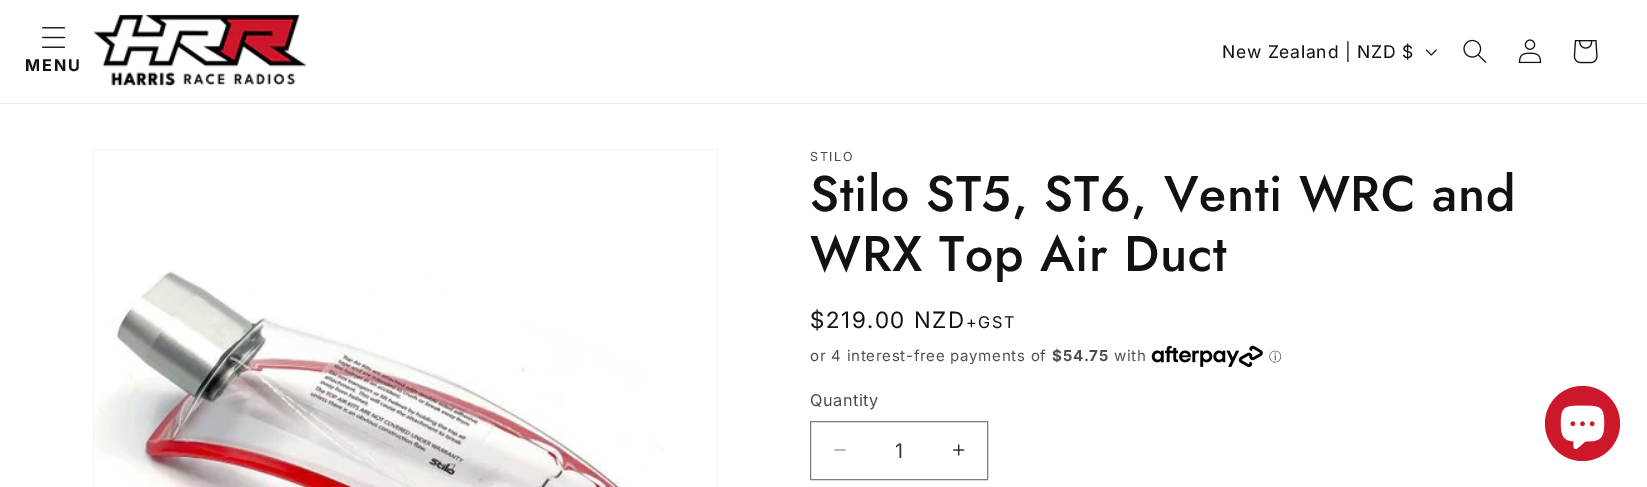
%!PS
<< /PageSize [1647 487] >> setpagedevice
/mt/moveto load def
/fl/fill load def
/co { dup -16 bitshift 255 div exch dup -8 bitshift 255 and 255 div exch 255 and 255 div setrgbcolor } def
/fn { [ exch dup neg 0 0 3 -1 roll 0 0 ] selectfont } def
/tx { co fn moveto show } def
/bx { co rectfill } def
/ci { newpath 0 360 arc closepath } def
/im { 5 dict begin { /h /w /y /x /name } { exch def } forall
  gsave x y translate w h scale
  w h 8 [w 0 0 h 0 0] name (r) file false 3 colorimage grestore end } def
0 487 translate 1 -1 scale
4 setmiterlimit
0 0 1647 487 16#FFFFFF bx
0 103 1647 1 16#ECECEC bx
(media/1.raw) 93 14 214 73 im
(media/2.raw) 1425 49 12 7 im
(media/3.raw) 1463 39 24 24 im
(media/4.raw) 1518 39 24 25 im
(media/5.raw) 1573 40 25 24 im
(media/6.raw) 42 27 24 21 im
16#F3F3F3 co
93.5 149.5 624 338 rectstroke
(media/7.raw) 94 271 570 216 im
(media/8.raw) 1151 345 112 23 im
(media/9.raw) 834 449 12 2 im
(media/10.raw) 953 444 12 12 im
16#7D7D7D co
810.5 421.5 177 58 rectstroke
16#CD172B co
1582.5 423.5 37.5 ci fl
(media/11.raw) 1560 405 45 45 im
/Inter-Regular 17.5 fn
16#121212 co
1222 58 mt .75 0 (New Zealand | NZD $) ashow
/Inter-Bold 16.25 fn
25 71 mt 2 0 (MENU) ashow
/Inter-Regular 12.5 fn
16#4D4D4D co
810 161 mt 1.6 0 (STILO) ashow
/Jost-Medium 50 fn
16#121212 co
810 211 mt .75 0 (Stilo ST5, ST6, Venti WRC and) ashow
810 271 mt .75 0 (WRX Top Air Duct) ashow
/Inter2-Regular 22.5 fn
810 328 mt 1.6 0 ($219.00 NZD) ashow
/Inter-Regular 16.25 fn
966 328 mt 1.6 0 (+GST) ashow
/Inter-Regular 15 fn
16#4D4D4D co
810 361 mt .75 0 (or 4 interest-free payments of) ashow
/Inter-Bold 15 fn
1052 361 mt .75 0 ($54.75) ashow
/Inter-Regular 15 fn
1114 361 mt .75 0 (with) ashow
(ⓘ) 1269 361 /WenQuanYiZenHei-Medium 12.5 16#4D4D4D tx
/Inter-Regular 16.25 fn
810 406 mt .5 0 (Quantity) ashow
(1) 895 458 /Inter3-Regular 20 16#363636 tx
showpage
